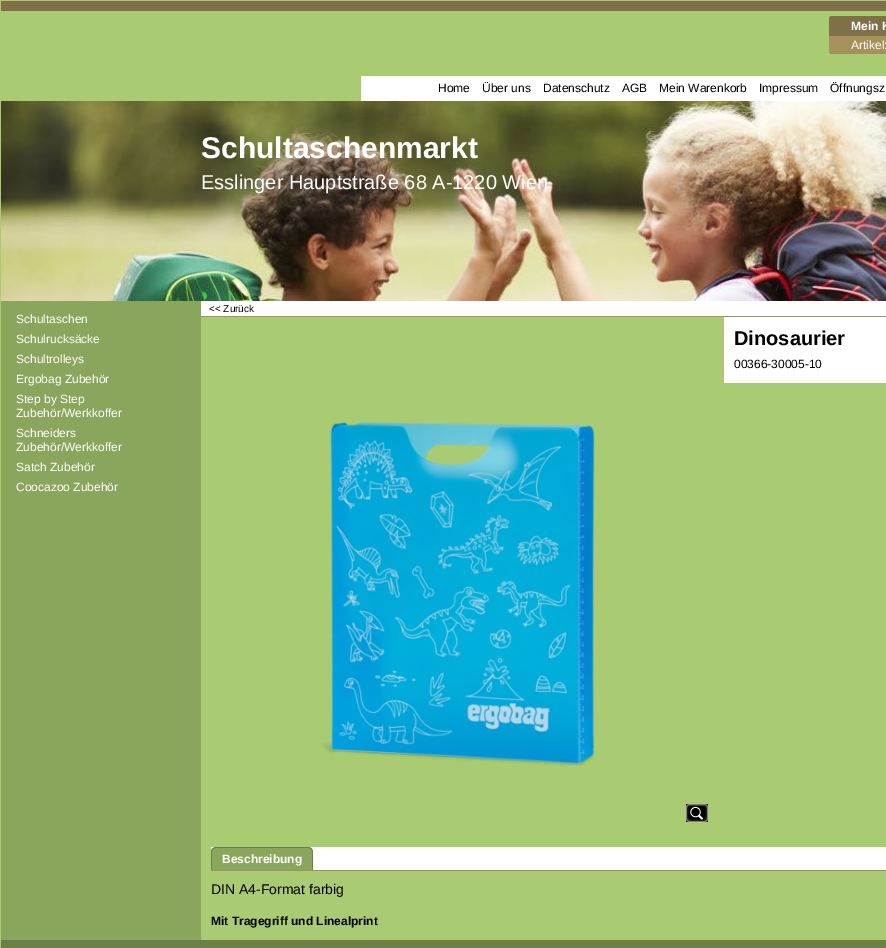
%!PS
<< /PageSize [886 948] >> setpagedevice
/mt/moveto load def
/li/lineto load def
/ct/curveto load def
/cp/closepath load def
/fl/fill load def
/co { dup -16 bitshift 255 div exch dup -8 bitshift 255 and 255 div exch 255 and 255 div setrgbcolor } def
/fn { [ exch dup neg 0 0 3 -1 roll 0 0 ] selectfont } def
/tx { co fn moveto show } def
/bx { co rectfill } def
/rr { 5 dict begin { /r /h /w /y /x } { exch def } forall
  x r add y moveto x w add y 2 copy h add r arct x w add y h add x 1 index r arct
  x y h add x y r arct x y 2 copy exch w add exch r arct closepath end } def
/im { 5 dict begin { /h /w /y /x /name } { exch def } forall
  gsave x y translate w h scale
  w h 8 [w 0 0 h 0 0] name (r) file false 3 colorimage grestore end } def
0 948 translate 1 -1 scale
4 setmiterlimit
0 0 886 948 16#A9CB71 bx
1 1 885 10 16#807047 bx
16#A6915D co
829 16 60 38 3 rr fl
16#807047 co
832 16 mt 886 16 li 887.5 16 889 17.5 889 19 ct 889 36 li 829 36 li 829 19 li 829 17.5 830.5 16 832 16 ct cp fl
361 76 525 25 16#FFFFFF bx
(media/1.raw) 1 101 885 200 im
1 301 200 639 16#8AA65D bx
201 301 685 15 16#FFFFFF bx
201 316 685 1 16#A6915D bx
724 317 162 66 16#FFFFFF bx
723 317 1 66 16#CCB372 bx
(media/2.raw) 322 422 273 344 im
686 804 22 18 16#000000 bx
(media/3.raw) 686 804 22 18 im
211 847 675 23 16#FFFFFF bx
211 870 675 1 16#A6915D bx
16#8AA65D co
216 848 mt 308 848 li 310 848 312 850 312 852 ct 312 870 li 212 870 li 212 852 li 212 850 214 848 216 848 ct cp fl
16#6A8047 co
216 847 mt 308 847 li 311 847 313 849 313 852 ct 313 870 li 211 870 li 211 852 li 211 849 213 847 216 847 ct cp 216 848 mt 308 848 li 310 848 312 850 312 852 ct 312 870 li 212 870 li 212 852 li 212 850 214 848 216 848 ct cp eofill
1 940 885 8 16#6A8047 bx
(Mein K) 851 30 /LiberationSans-Bold 12 16#FFFFFF tx
(Artikel:) 851 49 /LiberationSans-Regular 12 16#FFFFFF tx
(Home) 438 92 /LiberationSans-Regular 12 16#000000 tx
(Über uns) 482 92 /LiberationSans-Regular 12 16#000000 tx
(Datenschutz) 543 92 /LiberationSans-Regular 12 16#000000 tx
(AGB) 622 92 /LiberationSans-Regular 12 16#000000 tx
(Mein Warenkorb) 659 92 /LiberationSans-Regular 12 16#000000 tx
(Impressum) 759 92 /LiberationSans-Regular 12 16#000000 tx
(Öffnungsz) 830 92 /LiberationSans-Regular 12 16#000000 tx
(Schultaschenmarkt) 201 158 /LiberationSans-Bold 30 16#FFFFFF tx
(Esslinger Hauptstraße 68 A-1220 Wien) 201 189 /LiberationSans-Regular 20 16#FFFFFF tx
(Schultaschen) 16 323 /LiberationSans-Regular 12 16#FFFFFF tx
(Schulrucksäcke) 16 343 /LiberationSans-Regular 12 16#FFFFFF tx
(Schultrolleys) 16 363 /LiberationSans-Regular 12 16#FFFFFF tx
(Ergobag Zubehör) 16 383 /LiberationSans-Regular 12 16#FFFFFF tx
(Step by Step) 16 403 /LiberationSans-Regular 12 16#FFFFFF tx
(Zubehör/Werkkoffer) 16 417 /LiberationSans-Regular 12 16#FFFFFF tx
(Schneiders) 16 437 /LiberationSans-Regular 12 16#FFFFFF tx
(Zubehör/Werkkoffer) 16 451 /LiberationSans-Regular 12 16#FFFFFF tx
(Satch Zubehör) 16 471 /LiberationSans-Regular 12 16#FFFFFF tx
(Coocazoo Zubehör) 16 491 /LiberationSans-Regular 12 16#FFFFFF tx
(<< Zurück) 209 312 /LiberationSans-Regular 10 16#000000 tx
(Dinosaurier) 734 345 /LiberationSans-Bold 20 16#000000 tx
(00366-30005-10) 734 368 /LiberationSans-Regular 12 16#000000 tx
(Beschreibung) 222 863 /LiberationSans-Bold 12 16#FFFFFF tx
(DIN A4-Format farbig) 211 894 /LiberationSans-Regular 14 16#000000 tx
(Mit Tragegriff und Linealprint) 211 925 /LiberationSans-Bold 12 16#000000 tx
showpage
